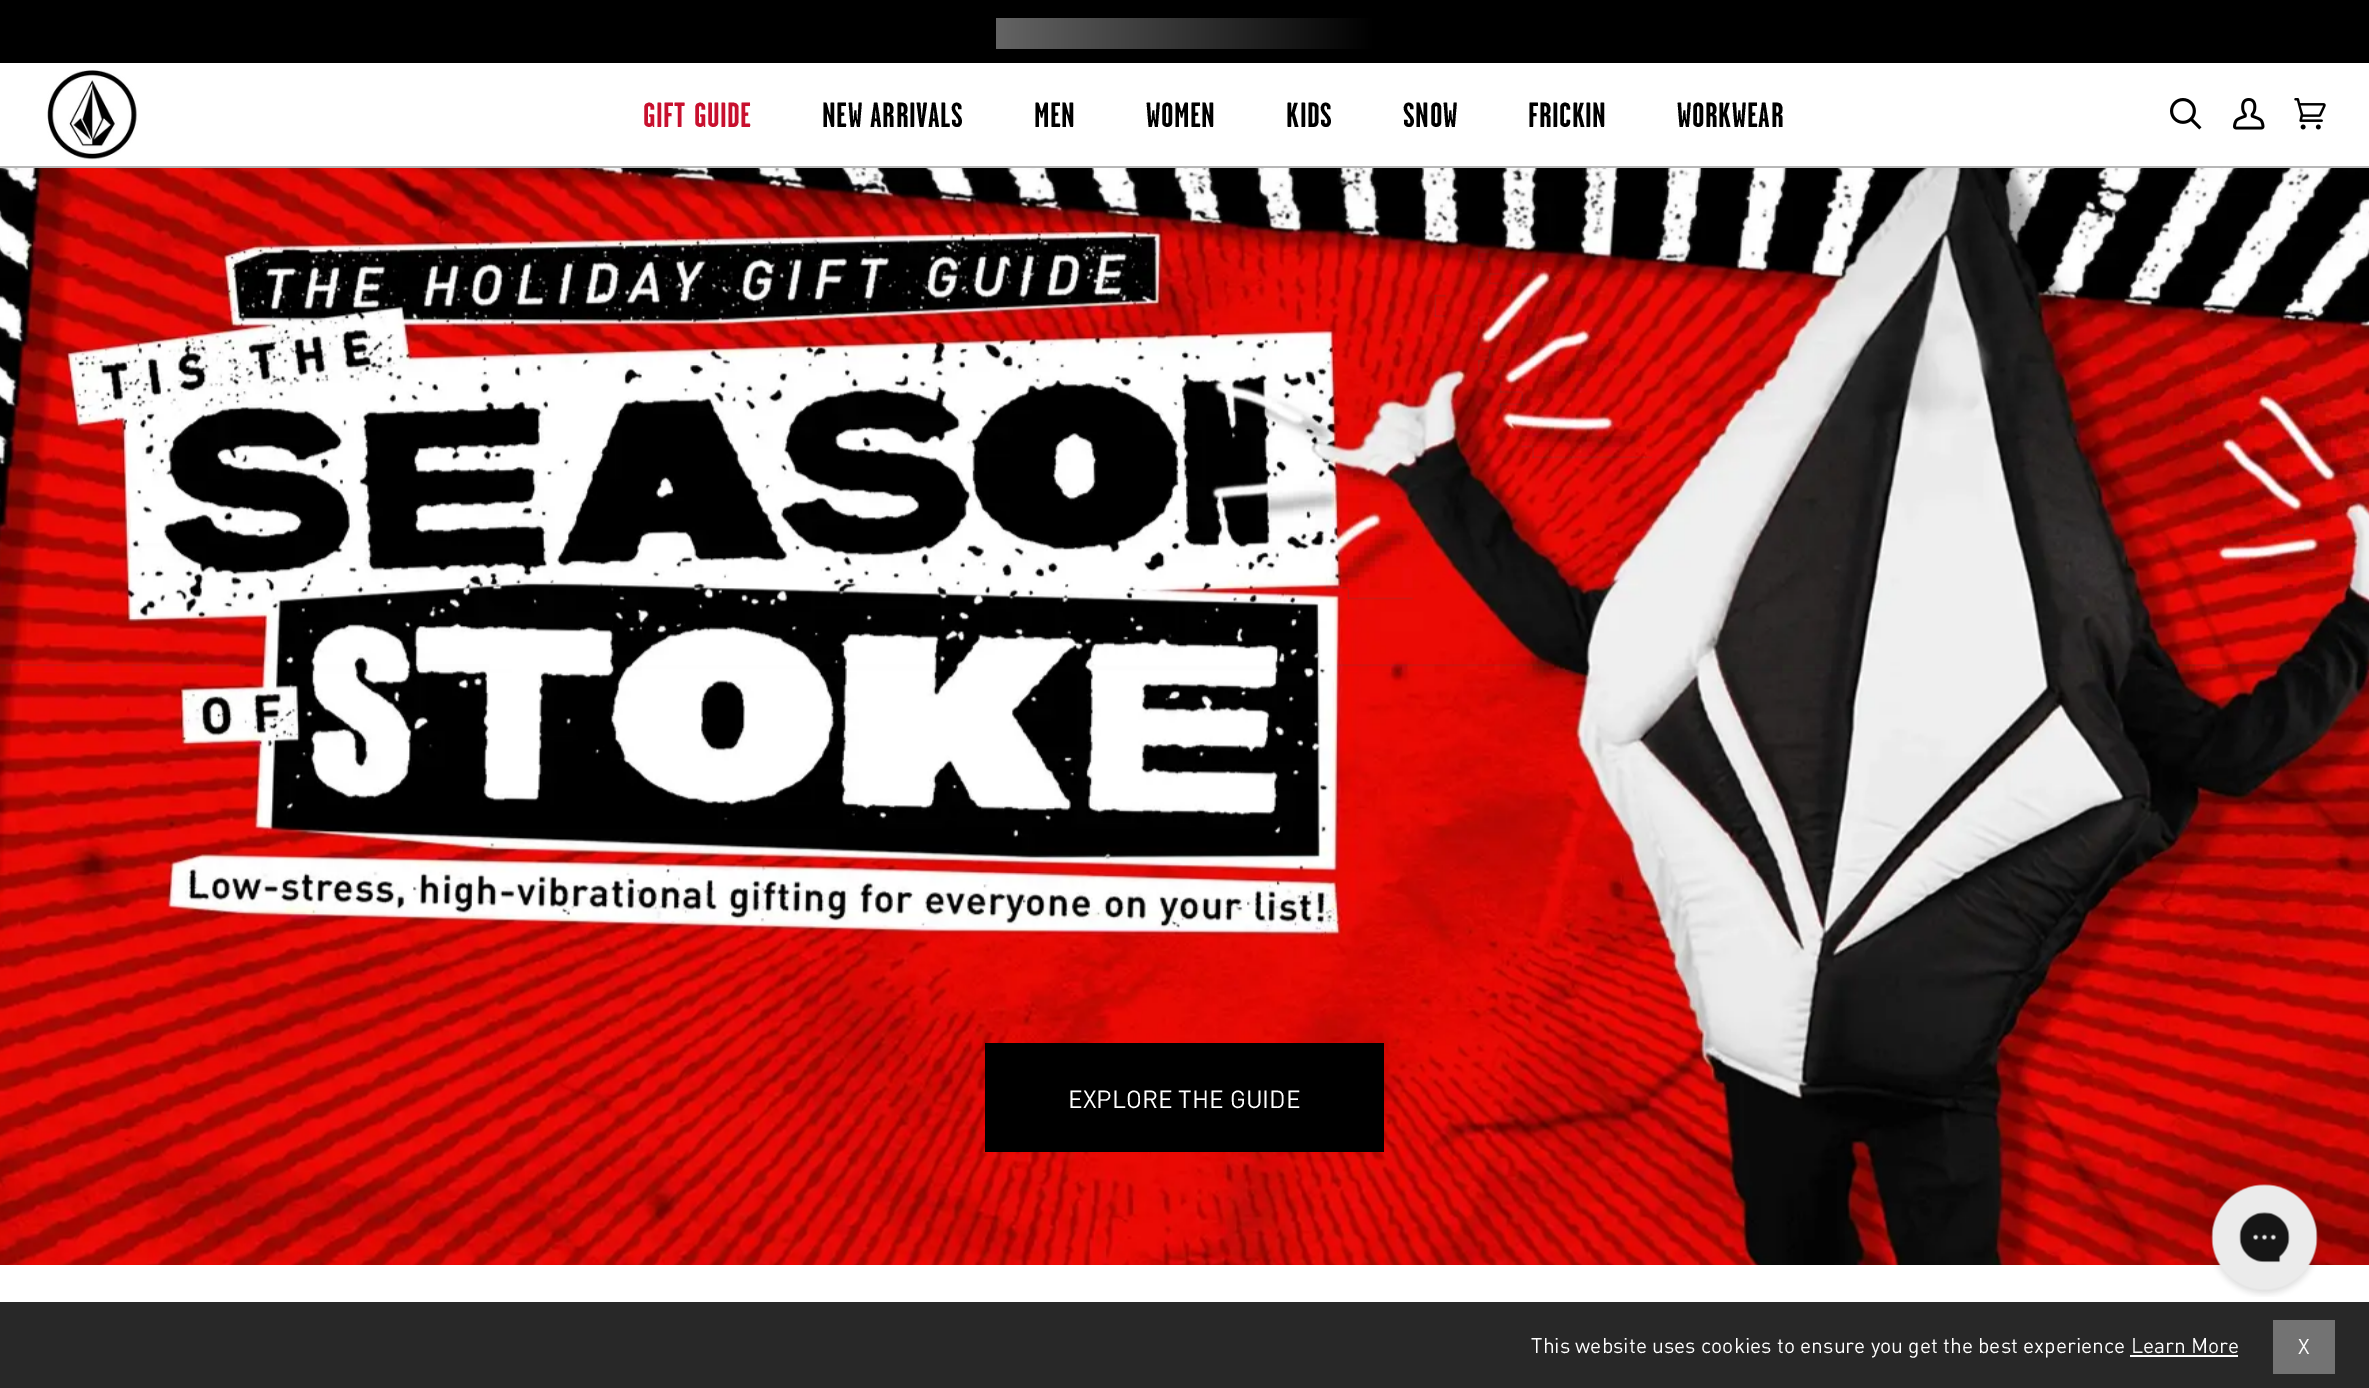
%!PS
<< /PageSize [2369 1388] >> setpagedevice
/mt/moveto load def
/li/lineto load def
/ct/curveto load def
/cp/closepath load def
/gs/gsave load def
/gr/grestore load def
/co { dup -16 bitshift 255 div exch dup -8 bitshift 255 and 255 div exch 255 and 255 div setrgbcolor } def
/fn { [ exch dup neg 0 0 3 -1 roll 0 0 ] selectfont } def
/tx { co fn moveto show } def
/bx { co rectfill } def
/im { 5 dict begin { /h /w /y /x /name } { exch def } forall
  gsave x y translate w h scale
  w h 8 [w 0 0 h 0 0] name (r) file false 3 colorimage grestore end } def
0 1388 translate 1 -1 scale
4 setmiterlimit
0 0 2369 1388 16#FFFFFF bx
0 61 2369 2 16#000000 bx
0 0 2369 61 16#000000 bx
gs 996 18 mt 1370 18 li 1374 18 1377 21 1377 25 ct 1377 42 li 1377 46 1374 49 1370 49 ct 996 49 li cp clip newpath
<< /ShadingType 2 /ColorSpace /DeviceRGB /Coords [613 33 1376 33] /Extend [true true] /Function << /FunctionType 3 /Domain [0 1] /Functions [<< /FunctionType 2 /Domain [0 1] /C0 [0 0 0] /C1 [.392 .392 .392] /N 1 >> << /FunctionType 2 /Domain [0 1] /C0 [.392 .392 .392] /C1 [0 0 0] /N 1 >>] /Bounds [.5] /Encode [0 1 0 1] >> >> shfill gr
0 166 2369 2 16#B7B7B7 bx
(media/1.raw) 47 70 91 90 im
(media/2.raw) 2170 98 32 32 im
(media/3.raw) 2233 98 32 32 im
(media/4.raw) 2294 98 32 32 im
(media/5.raw) 0 168 2369 1097 im
985 1043 399 109 16#000000 bx
(media/6.raw) 2208 1184 112 113 im
0 1302 2369 86 16#282828 bx
2130 1355 108 2 16#FFFFFF bx
2273 1320 62 54 16#737373 bx
/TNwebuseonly-Bold 35 fn
16#C8102E co
643 127 mt .6 0 (GIFT GUIDE) ashow
16#000000 co
822 127 mt .6 0 (NEW ARRIVALS) ashow
1034 127 mt .6 0 (MEN) ashow
1146 127 mt .6 0 (WOMEN) ashow
1286 127 mt .6 0 (KIDS) ashow
1403 127 mt .6 0 (SNOW) ashow
1528 127 mt .6 0 (FRICKIN) ashow
1677 127 mt .6 0 (WORKWEAR) ashow
(EXPLORE THE GUIDE) 1068 1108 /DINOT-Regular 24.5 16#FFFFFF tx
(This website uses cookies to ensure you get the best experience Learn More) 1531 1353 /DINOT-Regular 21 16#FFFFFF tx
(X) 2298 1354 /DINOT-Regular 21 16#FFFFFF tx
showpage
